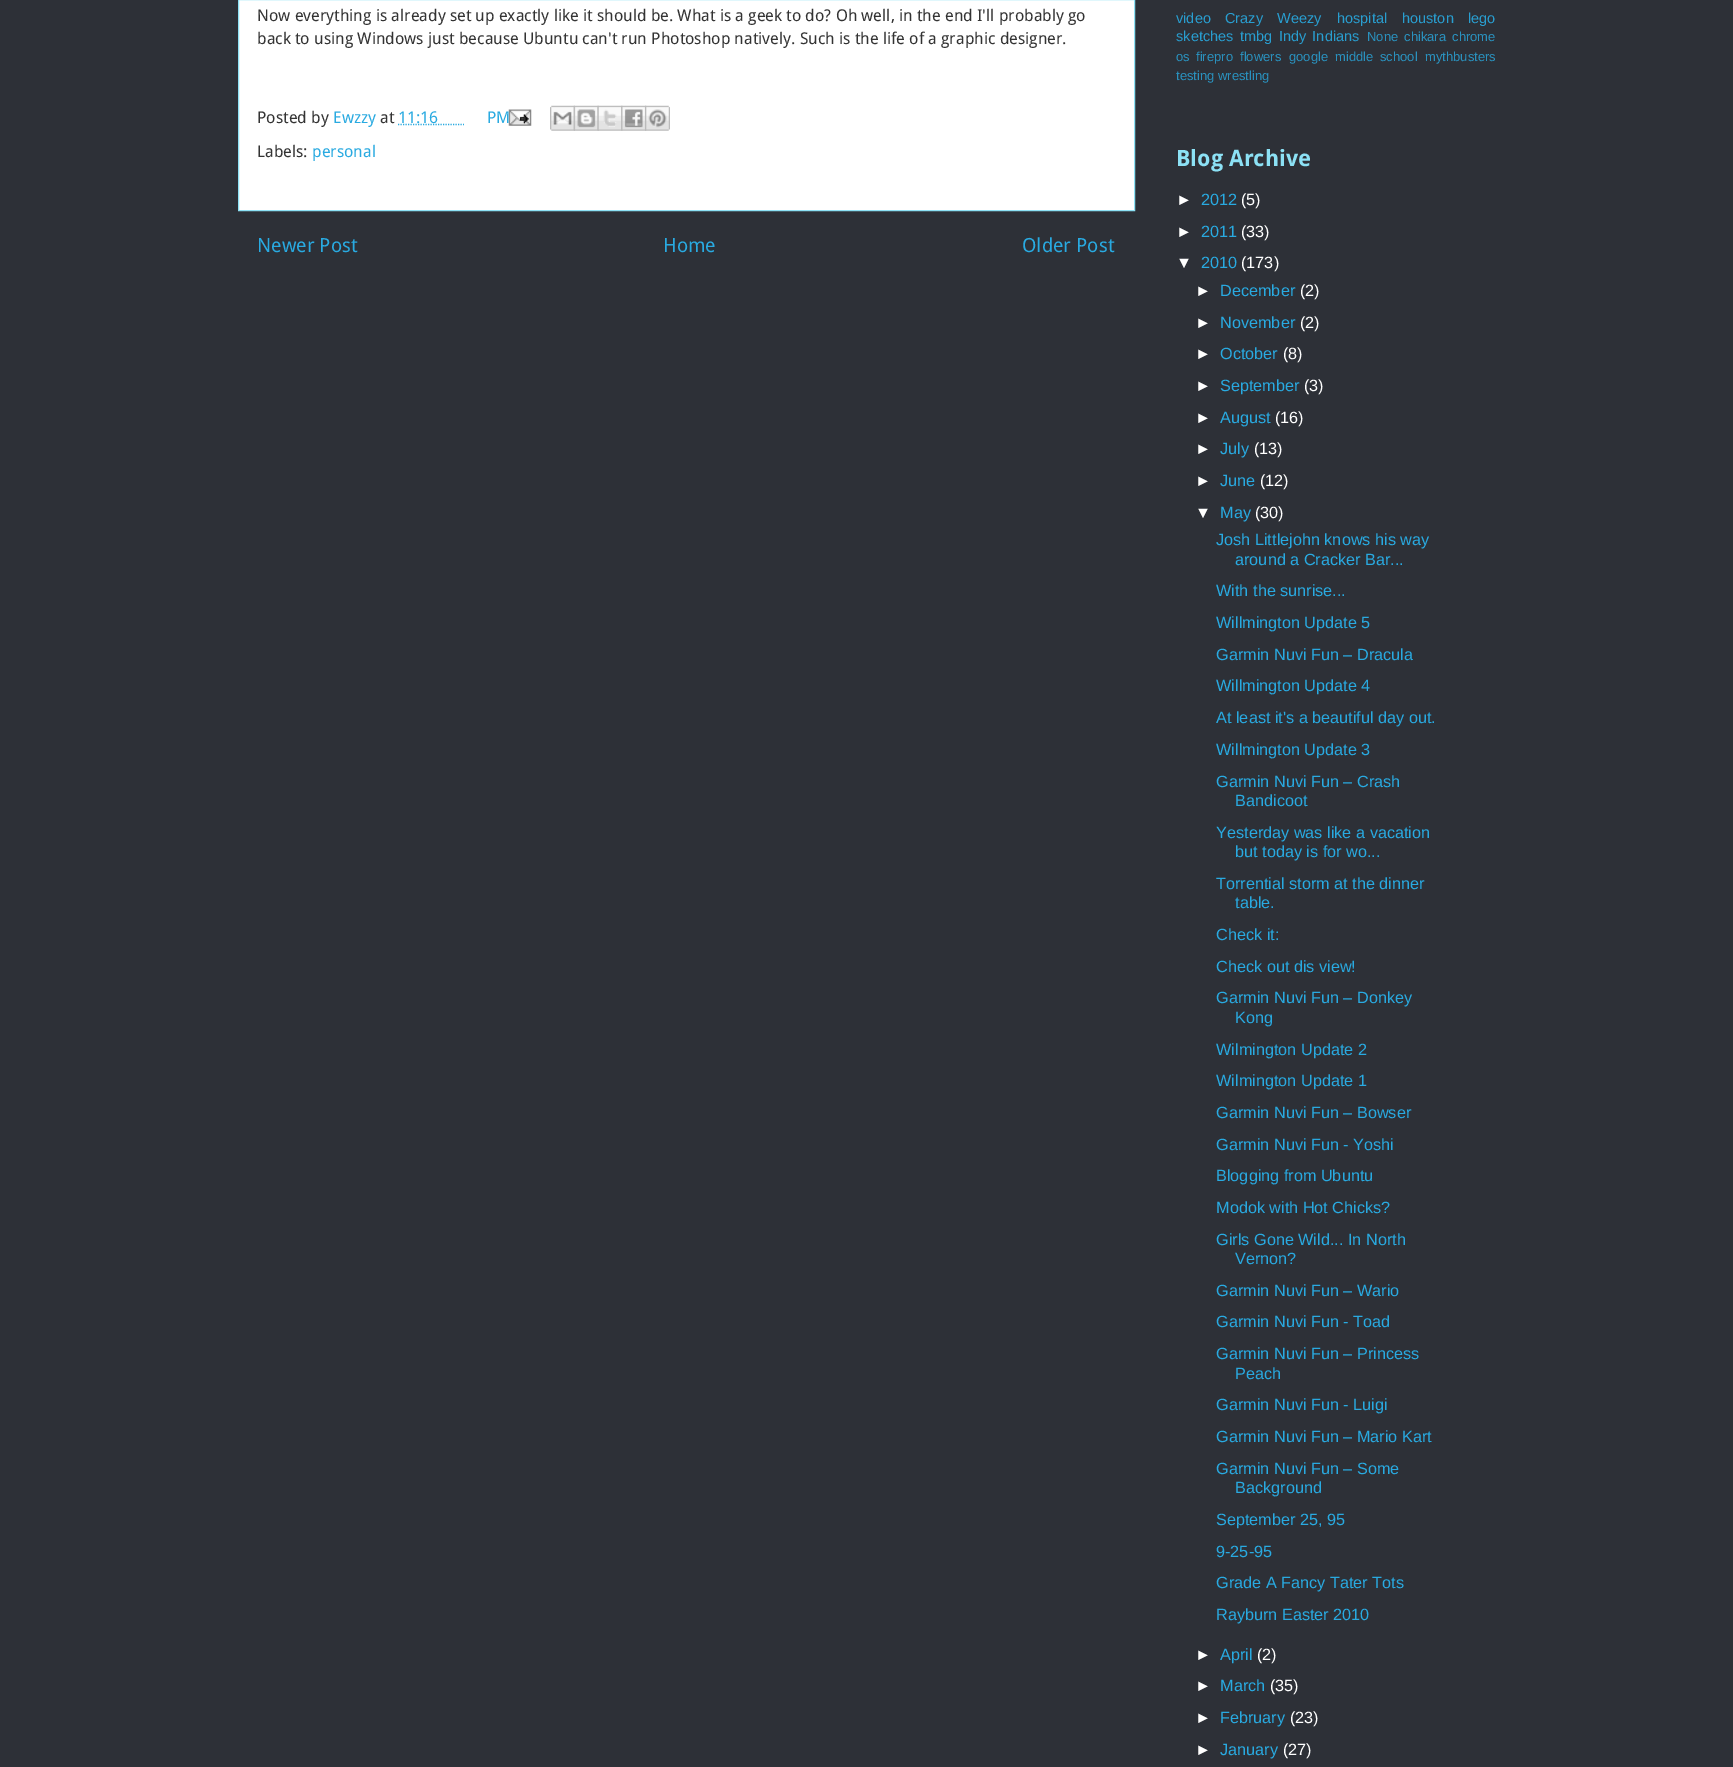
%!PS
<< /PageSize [1733 1767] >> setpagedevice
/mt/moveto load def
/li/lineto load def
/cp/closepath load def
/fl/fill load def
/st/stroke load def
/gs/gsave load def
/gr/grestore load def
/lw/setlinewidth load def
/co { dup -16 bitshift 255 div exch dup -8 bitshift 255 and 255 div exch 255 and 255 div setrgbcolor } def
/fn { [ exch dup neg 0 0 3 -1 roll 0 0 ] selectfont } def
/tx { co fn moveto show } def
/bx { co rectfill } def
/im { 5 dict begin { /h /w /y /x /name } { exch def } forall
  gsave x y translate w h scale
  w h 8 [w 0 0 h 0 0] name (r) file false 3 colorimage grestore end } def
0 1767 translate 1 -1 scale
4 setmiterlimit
0 0 1733 1767 16#2D3037 bx
16#FFFFFF co
238.5 -.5 mt 1134.5 -.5 li 1134.5 210.5 li 238.5 210.5 li cp gs fl gr
16#8CE1F5 co
st
16#29AAE1 co
1.2 lw
[1.25 1.25] 0 setdash
398 124.5 mt 464 124.5 li st
(media/1.raw) 508 109 24 17 im
(media/2.raw) 550 105 25 26 im
(media/3.raw) 573 105 26 26 im
(media/4.raw) 597 105 26 26 im
(media/5.raw) 621 105 26 26 im
(media/6.raw) 645 105 25 26 im
(Now everything is already set up exactly like it should be. What is a geek to do? Oh well, in the end I'll probably go) 257 21 /DroidSans-Regular 16.25 16#333333 tx
(back to using Windows just because Ubuntu can't run Photoshop natively. Such is the life of a graphic designer.) 257 44 /DroidSans-Regular 16.25 16#333333 tx
(Posted by) 257 123 /DroidSans-Regular 16.25 16#333333 tx
(Ewzzy) 333 123 /DroidSans-Regular 16.25 16#29AAE1 tx
(at) 380 123 /DroidSans-Regular 16.25 16#333333 tx
(11:16 PM) 398 123 /DroidSans-Regular 16.25 16#29AAE1 tx
(Labels:) 257 157 /DroidSans-Regular 16.25 16#333333 tx
(personal) 312 157 /DroidSans-Regular 16.25 16#29AAE1 tx
(Newer Post) 257 252 /DroidSans-Regular 19.5 16#29AAE1 tx
(Home) 663 252 /DroidSans-Regular 19.5 16#29AAE1 tx
(Older Post) 1022 252 /DroidSans-Regular 19.5 16#29AAE1 tx
(video) 1176 23 /LiberationSans-Regular 14.5 16#299ED0 tx
1225 23 mt 10 0 32 (Crazy Weezy) widthshow
(hospital) 1337 23 /LiberationSans-Regular 14.5 16#299ED0 tx
(houston) 1402 23 /LiberationSans-Regular 14.5 16#299ED0 tx
(lego) 1468 23 /LiberationSans-Regular 14.5 16#299ED0 tx
(sketches) 1176 41 /LiberationSans-Regular 14.5 16#299ED0 tx
(tmbg) 1240 41 /LiberationSans-Regular 14.5 16#299ED0 tx
1279 41 mt 2 0 32 (Indy Indians) widthshow
(None) 1367 41 /LiberationSans-Regular 13 16#2A92BF tx
(chikara) 1404 41 /LiberationSans-Regular 13 16#2A92BF tx
(chrome) 1452 41 /LiberationSans-Regular 13 16#2A92BF tx
(os) 1176 61 /LiberationSans-Regular 13 16#2A92BF tx
(firepro) 1196 61 /LiberationSans-Regular 13 16#2A92BF tx
(flowers) 1240 61 /LiberationSans-Regular 13 16#2A92BF tx
(google) 1289 61 /LiberationSans-Regular 13 16#2A92BF tx
1335 61 mt 3 0 32 (middle school) widthshow
(mythbusters) 1425 61 /LiberationSans-Regular 13 16#2A92BF tx
(testing wrestling) 1176 80 /LiberationSans-Regular 13 16#2A92BF tx
(Blog Archive) 1176 166 /DroidSans-Bold 22.5 16#8CE1F5 tx
(►) 1176 205 /LiberationSans-Regular 16.25 16#FFFFFF tx
(2012) 1201 205 /LiberationSans-Regular 16.25 16#29AAE1 tx
(\(5\)) 1241 205 /LiberationSans-Regular 16.25 16#FFFFFF tx
(►) 1176 237 /LiberationSans-Regular 16.25 16#FFFFFF tx
(2011) 1201 237 /LiberationSans-Regular 16.25 16#29AAE1 tx
(\(33\)) 1241 237 /LiberationSans-Regular 16.25 16#FFFFFF tx
(▼) 1176 268 /LiberationSans-Regular 16.25 16#FFFFFF tx
(2010) 1201 268 /LiberationSans-Regular 16.25 16#29AAE1 tx
(\(173\)) 1241 268 /LiberationSans-Regular 16.25 16#FFFFFF tx
(►) 1195 296 /LiberationSans-Regular 16.25 16#FFFFFF tx
(December) 1220 296 /LiberationSans-Regular 16.25 16#29AAE1 tx
(\(2\)) 1300 296 /LiberationSans-Regular 16.25 16#FFFFFF tx
(►) 1195 328 /LiberationSans-Regular 16.25 16#FFFFFF tx
(November) 1220 328 /LiberationSans-Regular 16.25 16#29AAE1 tx
(\(2\)) 1300 328 /LiberationSans-Regular 16.25 16#FFFFFF tx
(►) 1195 359 /LiberationSans-Regular 16.25 16#FFFFFF tx
(October) 1220 359 /LiberationSans-Regular 16.25 16#29AAE1 tx
(\(8\)) 1283 359 /LiberationSans-Regular 16.25 16#FFFFFF tx
(►) 1195 391 /LiberationSans-Regular 16.25 16#FFFFFF tx
(September) 1220 391 /LiberationSans-Regular 16.25 16#29AAE1 tx
(\(3\)) 1304 391 /LiberationSans-Regular 16.25 16#FFFFFF tx
(►) 1195 423 /LiberationSans-Regular 16.25 16#FFFFFF tx
(August) 1220 423 /LiberationSans-Regular 16.25 16#29AAE1 tx
(\(16\)) 1275 423 /LiberationSans-Regular 16.25 16#FFFFFF tx
(►) 1195 454 /LiberationSans-Regular 16.25 16#FFFFFF tx
(July) 1220 454 /LiberationSans-Regular 16.25 16#29AAE1 tx
(\(13\)) 1254 454 /LiberationSans-Regular 16.25 16#FFFFFF tx
(►) 1195 486 /LiberationSans-Regular 16.25 16#FFFFFF tx
(June) 1220 486 /LiberationSans-Regular 16.25 16#29AAE1 tx
(\(12\)) 1260 486 /LiberationSans-Regular 16.25 16#FFFFFF tx
(▼) 1195 518 /LiberationSans-Regular 16.25 16#FFFFFF tx
(May) 1220 518 /LiberationSans-Regular 16.25 16#29AAE1 tx
(\(30\)) 1255 518 /LiberationSans-Regular 16.25 16#FFFFFF tx
(Josh Littlejohn knows his way) 1216 545 /LiberationSans-Regular 16.25 16#29AAE1 tx
(around a Cracker Bar...) 1235 565 /LiberationSans-Regular 16.25 16#29AAE1 tx
(With the sunrise...) 1216 596 /LiberationSans-Regular 16.25 16#29AAE1 tx
(Willmington Update 5) 1216 628 /LiberationSans-Regular 16.25 16#29AAE1 tx
(Garmin Nuvi Fun – Dracula) 1216 660 /LiberationSans-Regular 16.25 16#29AAE1 tx
(Willmington Update 4) 1216 691 /LiberationSans-Regular 16.25 16#29AAE1 tx
(At least it's a beautiful day out.) 1216 723 /LiberationSans-Regular 16.25 16#29AAE1 tx
(Willmington Update 3) 1216 755 /LiberationSans-Regular 16.25 16#29AAE1 tx
(Garmin Nuvi Fun – Crash) 1216 787 /LiberationSans-Regular 16.25 16#29AAE1 tx
(Bandicoot) 1235 806 /LiberationSans-Regular 16.25 16#29AAE1 tx
(Yesterday was like a vacation) 1216 838 /LiberationSans-Regular 16.25 16#29AAE1 tx
(but today is for wo...) 1235 857 /LiberationSans-Regular 16.25 16#29AAE1 tx
(Torrential storm at the dinner) 1216 889 /LiberationSans-Regular 16.25 16#29AAE1 tx
(table.) 1235 908 /LiberationSans-Regular 16.25 16#29AAE1 tx
(Check it:) 1216 940 /LiberationSans-Regular 16.25 16#29AAE1 tx
(Check out dis view!) 1216 972 /LiberationSans-Regular 16.25 16#29AAE1 tx
(Garmin Nuvi Fun – Donkey) 1216 1003 /LiberationSans-Regular 16.25 16#29AAE1 tx
(Kong) 1235 1023 /LiberationSans-Regular 16.25 16#29AAE1 tx
(Wilmington Update 2) 1216 1055 /LiberationSans-Regular 16.25 16#29AAE1 tx
(Wilmington Update 1) 1216 1086 /LiberationSans-Regular 16.25 16#29AAE1 tx
(Garmin Nuvi Fun – Bowser) 1216 1118 /LiberationSans-Regular 16.25 16#29AAE1 tx
(Garmin Nuvi Fun - Yoshi) 1216 1150 /LiberationSans-Regular 16.25 16#29AAE1 tx
(Blogging from Ubuntu) 1216 1181 /LiberationSans-Regular 16.25 16#29AAE1 tx
(Modok with Hot Chicks?) 1216 1213 /LiberationSans-Regular 16.25 16#29AAE1 tx
(Girls Gone Wild... In North) 1216 1245 /LiberationSans-Regular 16.25 16#29AAE1 tx
(Vernon?) 1235 1264 /LiberationSans-Regular 16.25 16#29AAE1 tx
(Garmin Nuvi Fun – Wario) 1216 1296 /LiberationSans-Regular 16.25 16#29AAE1 tx
(Garmin Nuvi Fun - Toad) 1216 1327 /LiberationSans-Regular 16.25 16#29AAE1 tx
(Garmin Nuvi Fun – Princess) 1216 1359 /LiberationSans-Regular 16.25 16#29AAE1 tx
(Peach) 1235 1379 /LiberationSans-Regular 16.25 16#29AAE1 tx
(Garmin Nuvi Fun - Luigi) 1216 1410 /LiberationSans-Regular 16.25 16#29AAE1 tx
(Garmin Nuvi Fun – Mario Kart) 1216 1442 /LiberationSans-Regular 16.25 16#29AAE1 tx
(Garmin Nuvi Fun – Some) 1216 1474 /LiberationSans-Regular 16.25 16#29AAE1 tx
(Background) 1235 1493 /LiberationSans-Regular 16.25 16#29AAE1 tx
(September 25, 95) 1216 1525 /LiberationSans-Regular 16.25 16#29AAE1 tx
(9-25-95) 1216 1557 /LiberationSans-Regular 16.25 16#29AAE1 tx
(Grade A Fancy Tater Tots) 1216 1588 /LiberationSans-Regular 16.25 16#29AAE1 tx
(Rayburn Easter 2010) 1216 1620 /LiberationSans-Regular 16.25 16#29AAE1 tx
(►) 1195 1660 /LiberationSans-Regular 16.25 16#FFFFFF tx
(April) 1220 1660 /LiberationSans-Regular 16.25 16#29AAE1 tx
(\(2\)) 1257 1660 /LiberationSans-Regular 16.25 16#FFFFFF tx
(►) 1195 1691 /LiberationSans-Regular 16.25 16#FFFFFF tx
(March) 1220 1691 /LiberationSans-Regular 16.25 16#29AAE1 tx
(\(35\)) 1270 1691 /LiberationSans-Regular 16.25 16#FFFFFF tx
(►) 1195 1723 /LiberationSans-Regular 16.25 16#FFFFFF tx
(February) 1220 1723 /LiberationSans-Regular 16.25 16#29AAE1 tx
(\(23\)) 1290 1723 /LiberationSans-Regular 16.25 16#FFFFFF tx
(►) 1195 1755 /LiberationSans-Regular 16.25 16#FFFFFF tx
(January) 1220 1755 /LiberationSans-Regular 16.25 16#29AAE1 tx
(\(27\)) 1283 1755 /LiberationSans-Regular 16.25 16#FFFFFF tx
showpage
